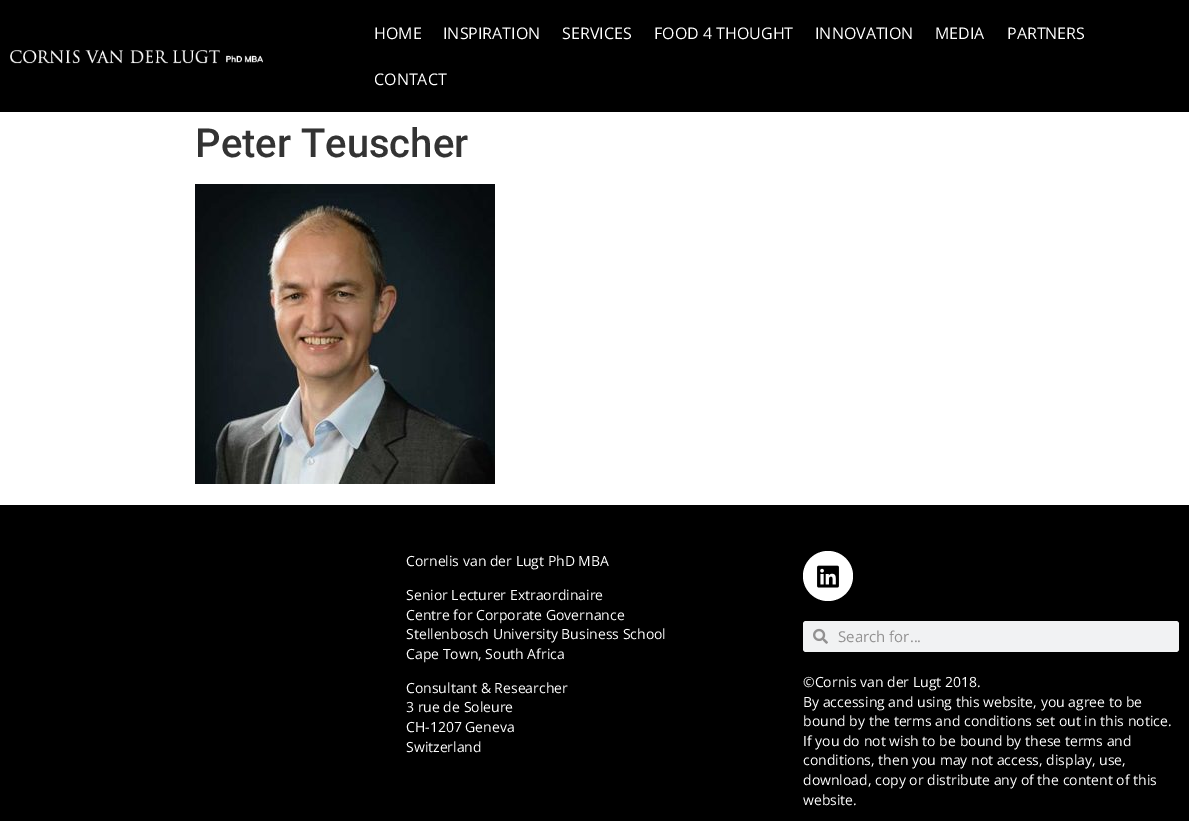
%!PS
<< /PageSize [1189 821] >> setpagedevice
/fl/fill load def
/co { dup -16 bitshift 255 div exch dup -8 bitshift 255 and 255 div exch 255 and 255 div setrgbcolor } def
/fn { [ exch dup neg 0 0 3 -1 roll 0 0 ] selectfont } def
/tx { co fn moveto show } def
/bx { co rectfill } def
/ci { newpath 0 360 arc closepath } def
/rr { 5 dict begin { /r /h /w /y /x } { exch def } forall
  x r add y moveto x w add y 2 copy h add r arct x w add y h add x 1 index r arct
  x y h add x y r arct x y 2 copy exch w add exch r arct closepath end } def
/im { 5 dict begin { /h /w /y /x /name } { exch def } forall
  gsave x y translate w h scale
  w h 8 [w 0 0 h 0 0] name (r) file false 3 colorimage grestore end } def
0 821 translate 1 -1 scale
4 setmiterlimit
0 0 1189 821 16#FFFFFF bx
0 0 1189 112 16#000000 bx
(media/1.raw) 10 50 253 14 im
(media/2.raw) 195 184 300 300 im
0 505 1189 316 16#000000 bx
16#FFFFFF co
828 576 25 ci fl
(media/3.raw) 817 565 22 23 im
16#F1F2F3 co
803 621 376 31 3 rr fl
(media/4.raw) 813 628 15 16 im
(HOME) 374 39 /OpenSans-Regular 16 16#FFFFFF tx
(INSPIRATION) 443 39 /OpenSans-Regular 16 16#FFFFFF tx
(SERVICES) 562 39 /OpenSans-Regular 16 16#FFFFFF tx
(FOOD 4 THOUGHT) 654 39 /OpenSans-Regular 16 16#FFFFFF tx
(INNOVATION) 815 39 /OpenSans-Regular 16 16#FFFFFF tx
(MEDIA) 935 39 /OpenSans-Regular 16 16#FFFFFF tx
(PARTNERS) 1007 39 /OpenSans-Regular 16 16#FFFFFF tx
(CONTACT) 374 85 /OpenSans-Regular 16 16#FFFFFF tx
(Peter Teuscher) 195 157 /Roboto-Medium 40 16#333333 tx
(Cornelis van der Lugt PhD MBA) 406 566 /OpenSans-Regular 14 16#FFFFFF tx
(Senior Lecturer Extraordinaire) 406 600 /OpenSans-Regular 14 16#FFFFFF tx
(Centre for Corporate Governance) 406 620 /OpenSans-Regular 14 16#FFFFFF tx
(Stellenbosch University Business School) 406 639 /OpenSans-Regular 14 16#FFFFFF tx
(Cape Town, South Africa) 406 659 /OpenSans-Regular 14 16#FFFFFF tx
(Consultant & Researcher) 406 693 /OpenSans-Regular 14 16#FFFFFF tx
(3 rue de Soleure) 406 712 /OpenSans-Regular 14 16#FFFFFF tx
(CH-1207 Geneva) 406 732 /OpenSans-Regular 14 16#FFFFFF tx
(Switzerland) 406 752 /OpenSans-Regular 14 16#FFFFFF tx
(Search for...) 838 642 /OpenSans-Regular 15 16#929191 tx
(©Cornis van der Lugt 2018.) 803 687 /OpenSans-Regular 14 16#FFFFFF tx
(By accessing and using this website, you agree to be) 803 707 /OpenSans-Regular 14 16#FFFFFF tx
(bound by the terms and conditions set out in this notice.) 803 726 /OpenSans-Regular 14 16#FFFFFF tx
(If you do not wish to be bound by these terms and) 803 746 /OpenSans-Regular 14 16#FFFFFF tx
(conditions, then you may not access, display, use,) 803 765 /OpenSans-Regular 14 16#FFFFFF tx
(download, copy or distribute any of the content of this) 803 785 /OpenSans-Regular 14 16#FFFFFF tx
(website.) 803 805 /OpenSans-Regular 14 16#FFFFFF tx
showpage
